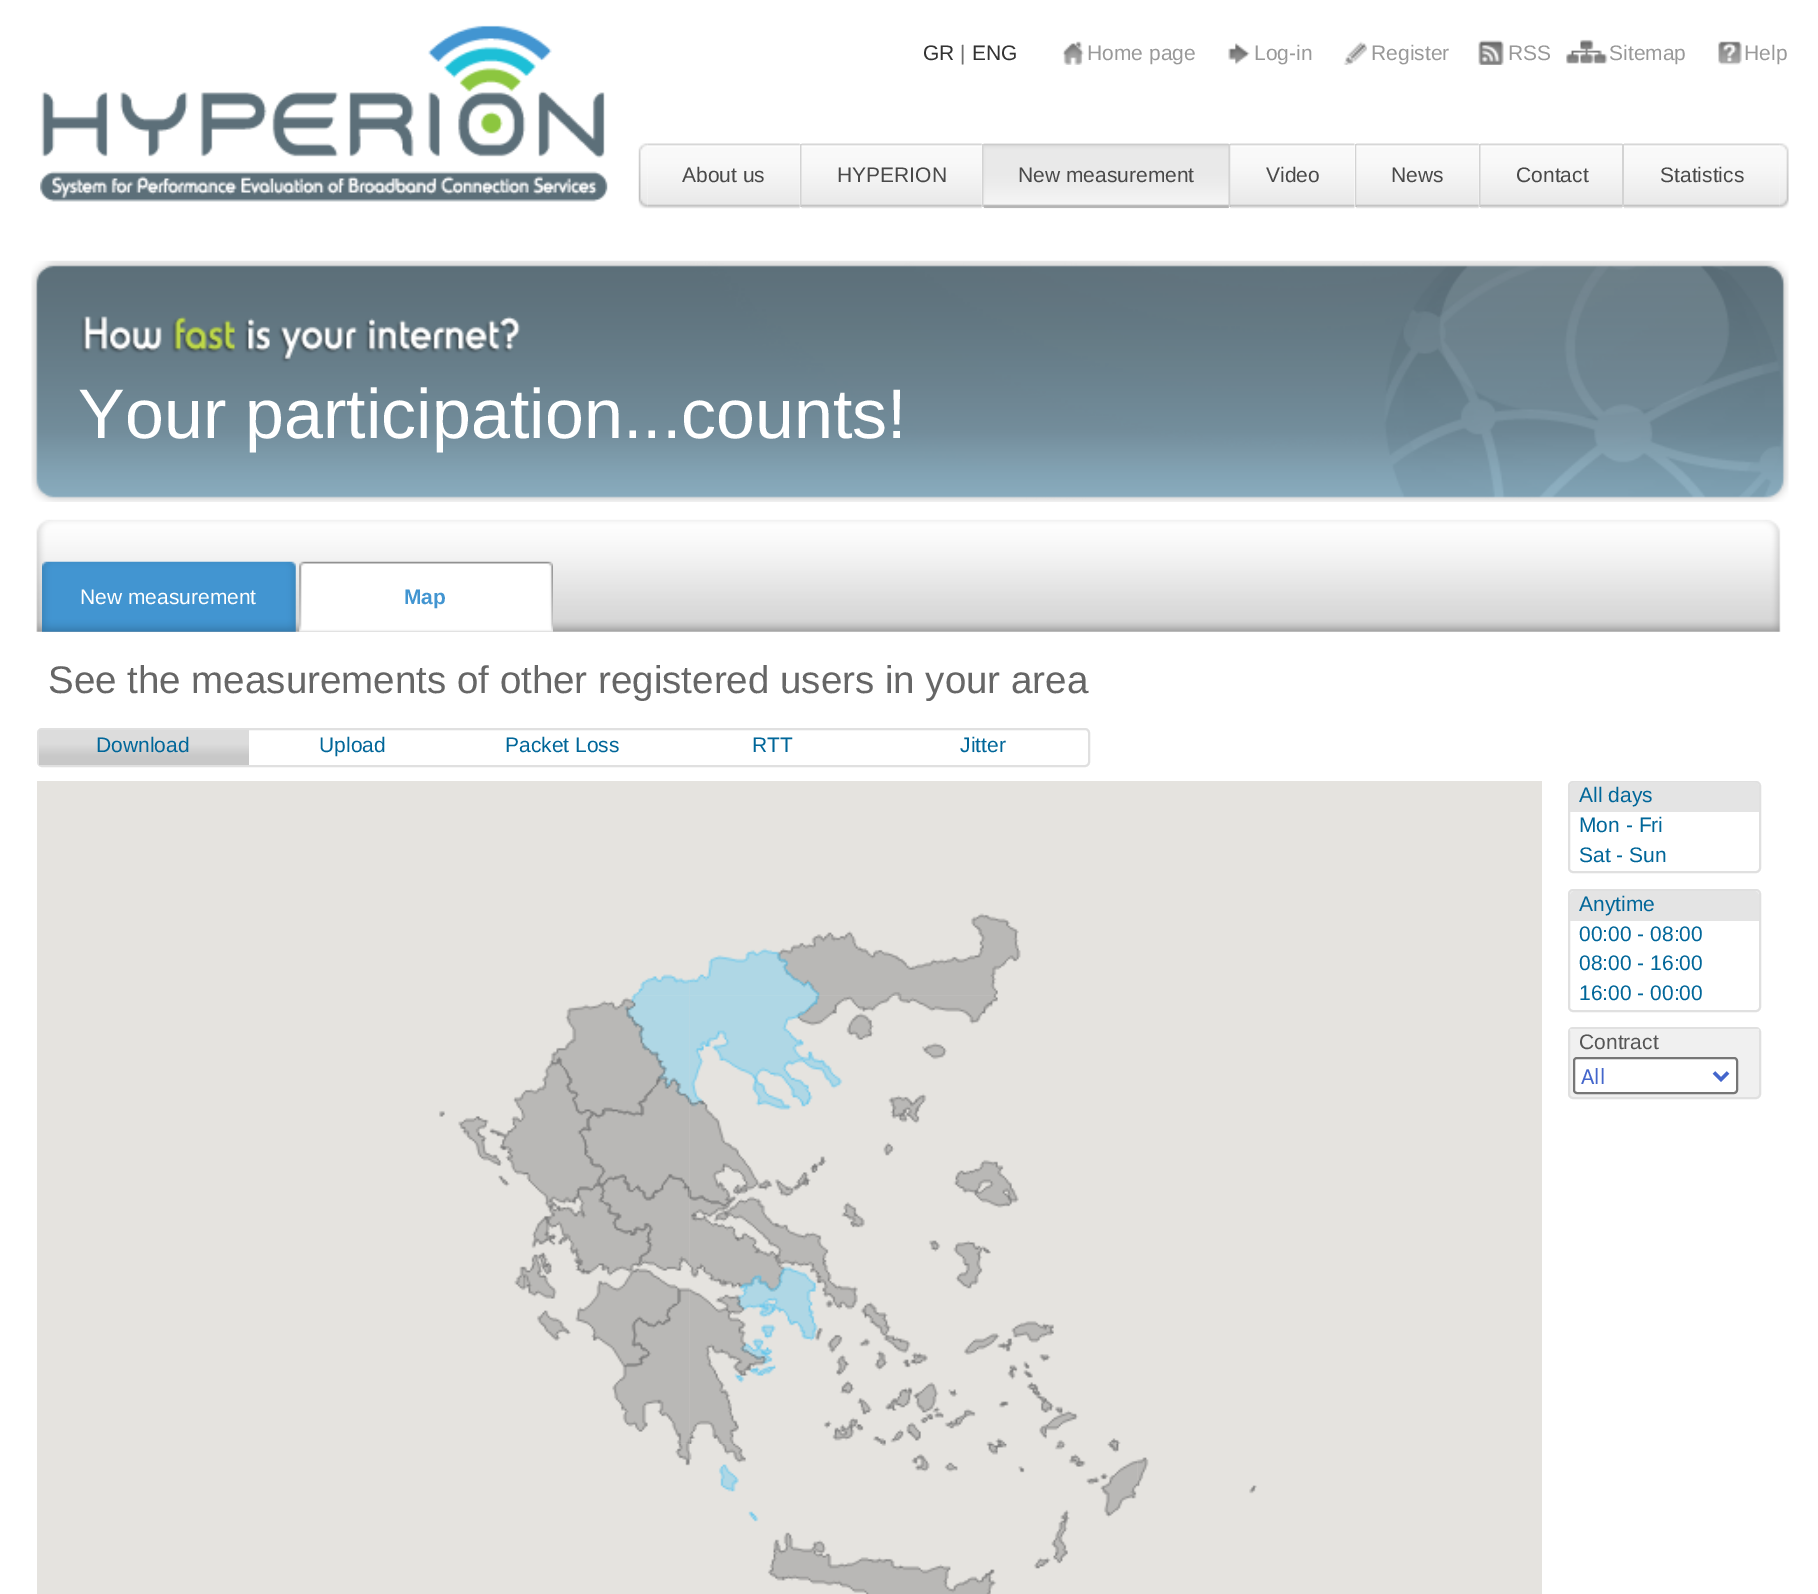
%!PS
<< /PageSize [1818 1594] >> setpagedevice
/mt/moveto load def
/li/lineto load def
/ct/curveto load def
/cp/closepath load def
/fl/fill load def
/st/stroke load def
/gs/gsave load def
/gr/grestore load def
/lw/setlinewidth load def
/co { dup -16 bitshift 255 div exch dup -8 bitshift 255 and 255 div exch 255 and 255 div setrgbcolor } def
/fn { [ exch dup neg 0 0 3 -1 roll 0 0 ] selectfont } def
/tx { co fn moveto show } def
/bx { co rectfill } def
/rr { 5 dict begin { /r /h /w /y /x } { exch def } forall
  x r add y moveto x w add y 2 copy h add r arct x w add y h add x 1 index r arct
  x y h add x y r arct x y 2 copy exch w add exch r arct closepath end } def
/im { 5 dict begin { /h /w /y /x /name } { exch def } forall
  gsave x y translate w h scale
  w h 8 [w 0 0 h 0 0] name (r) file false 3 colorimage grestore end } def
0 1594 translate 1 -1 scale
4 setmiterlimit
0 0 1818 1594 16#FFFFFF bx
(media/1.raw) 40 25 568 177 im
(media/2.raw) 1062 41 22 24 im
(media/3.raw) 1228 43 22 22 im
(media/4.raw) 1343 41 25 24 im
(media/5.raw) 1478 40 26 25 im
(media/6.raw) 1566 39 42 25 im
(media/7.raw) 1718 41 24 24 im
(media/8.raw) 638 143 10 66 im
(media/9.raw) 647 143 153 66 im
800 144 2 63 16#D3D3D3 bx
(media/10.raw) 801 143 181 66 im
982 144 2 63 16#D3D3D3 bx
984 144 245 64 16#CCCCCC bx
(media/11.raw) 983 143 246 66 im
1229 144 2 63 16#D3D3D3 bx
(media/12.raw) 1230 143 125 66 im
1355 144 2 63 16#D3D3D3 bx
(media/13.raw) 1356 143 123 66 im
1479 144 2 63 16#D3D3D3 bx
(media/14.raw) 1480 143 143 66 im
1622 144 2 63 16#D3D3D3 bx
(media/16.raw) 1779 143 10 66 im
(media/15.raw) 1624 143 156 66 im
(media/17.raw) 31 260 1758 242 im
(media/18.raw) 36 519 1745 113 im
(media/19.raw) 42 561 254 71 im
(media/20.raw) 299 561 254 71 im
16#E0E0E0 co
2 lw
38 729 1051 37 4 rr st
gs 39 730 mt 249 730 li 249 765 li 39 765 li cp clip newpath
<< /ShadingType 2 /ColorSpace /DeviceRGB /Coords [144 730 144 765] /Extend [true true] /Function << /FunctionType 3 /Domain [0 1] /Functions [<< /FunctionType 2 /Domain [0 1] /C0 [.863 .863 .863] /C1 [.863 .863 .863] /N 1 >> << /FunctionType 2 /Domain [0 1] /C0 [.863 .863 .863] /C1 [.784 .784 .784] /N 1 >> << /FunctionType 2 /Domain [0 1] /C0 [.784 .784 .784] /C1 [.784 .784 .784] /N 1 >>] /Bounds [.4 .75] /Encode [0 1 0 1 0 1] >> >> shfill gr
37 781 1505 813 16#E5E3DF bx
(media/24.raw) 689 995 432 449 im
(media/23.raw) 439 995 251 449 im
(media/21.raw) 633 974 57 22 im
(media/22.raw) 689 913 332 83 im
(media/27.raw) 1137 1457 120 37 im
(media/26.raw) 689 1443 449 151 im
(media/25.raw) 675 1443 15 23 im
16#E0E0E0 co
1569 782 191 90 4 rr st
16#E4E4E4 co
1575 782 mt 1754 782 li 1757 782 1759 784 1759 787 ct 1759 812 li 1570 812 li 1570 787 li 1570 784 1572 782 1575 782 ct cp fl
16#E0E0E0 co
1569 890 191 121 4 rr st
16#E4E4E4 co
1575 891 mt 1754 891 li 1757 891 1759 893 1759 896 ct 1759 921 li 1570 921 li 1570 896 li 1570 893 1572 891 1575 891 ct cp fl
16#F0F0F0 co
1569 1028 191 70 4 rr gs fl gr
16#E0E0E0 co
st
1570 1029 189 2 16#F0F0F0 bx
16#FFFFFF co
1574 1058 163 35 3 rr gs fl gr
16#767676 co
st
16#4466CC co
3.5 lw
1714 1072.5 mt 1721 1079.5 li 1728 1072.5 li st
(GR) 923 60 /LiberationSans-Regular 21 16#333333 tx
(|) 960 60 /LiberationSans-Regular 21 16#707070 tx
(ENG) 972 60 /LiberationSans-Regular 21 16#333333 tx
(Home page) 1087 60 /LiberationSans-Regular 21 16#999999 tx
(Log-in) 1254 60 /LiberationSans-Regular 21 16#999999 tx
(Register) 1371 60 /LiberationSans-Regular 21 16#999999 tx
(RSS) 1508 60 /LiberationSans-Regular 21 16#999999 tx
(Sitemap) 1609 60 /LiberationSans-Regular 21 16#999999 tx
(Help) 1744 60 /LiberationSans-Regular 21 16#999999 tx
(About us) 682 182 /LiberationSans-Regular 21 16#494949 tx
(HYPERION) 837 182 /LiberationSans-Regular 21 16#494949 tx
(New measurement) 1018 182 /LiberationSans-Regular 21 16#494949 tx
(Video) 1266 182 /LiberationSans-Regular 21 16#494949 tx
(News) 1391 182 /LiberationSans-Regular 21 16#494949 tx
(Contact) 1516 182 /LiberationSans-Regular 21 16#494949 tx
(Statistics) 1660 182 /LiberationSans-Regular 21 16#494949 tx
(Your participation...counts!) 78 438 /LiberationSans-Regular 70 16#FFFFFF tx
(New measurement) 80 604 /LiberationSans-Regular 21 16#FFFFFF tx
(Map) 404 604 /LiberationSans-Bold 21 16#4295D1 tx
(See the measurements of other registered users in your area) 48 693 /LiberationSans-Regular 38.5 16#666666 tx
(Download) 96 752 /LiberationSans-Regular 21 16#006699 tx
(Upload) 319 752 /LiberationSans-Regular 21 16#006699 tx
(Packet Loss) 505 752 /LiberationSans-Regular 21 16#006699 tx
(RTT) 752 752 /LiberationSans-Regular 21 16#006699 tx
(Jitter) 960 752 /LiberationSans-Regular 21 16#006699 tx
(All days) 1579 802 /LiberationSans-Regular 21 16#006699 tx
(Mon - Fri) 1579 832 /LiberationSans-Regular 21 16#006699 tx
(Sat - Sun) 1579 862 /LiberationSans-Regular 21 16#006699 tx
(Anytime) 1579 911 /LiberationSans-Regular 21 16#006699 tx
(00:00 - 08:00) 1579 941 /LiberationSans-Regular 21 16#006699 tx
(08:00 - 16:00) 1579 970 /LiberationSans-Regular 21 16#006699 tx
(16:00 - 00:00) 1579 1000 /LiberationSans-Regular 21 16#006699 tx
(Contract) 1579 1049 /LiberationSans-Regular 21 16#555555 tx
(All) 1581 1084 /Carlito-Regular 23 16#4466CC tx
showpage
